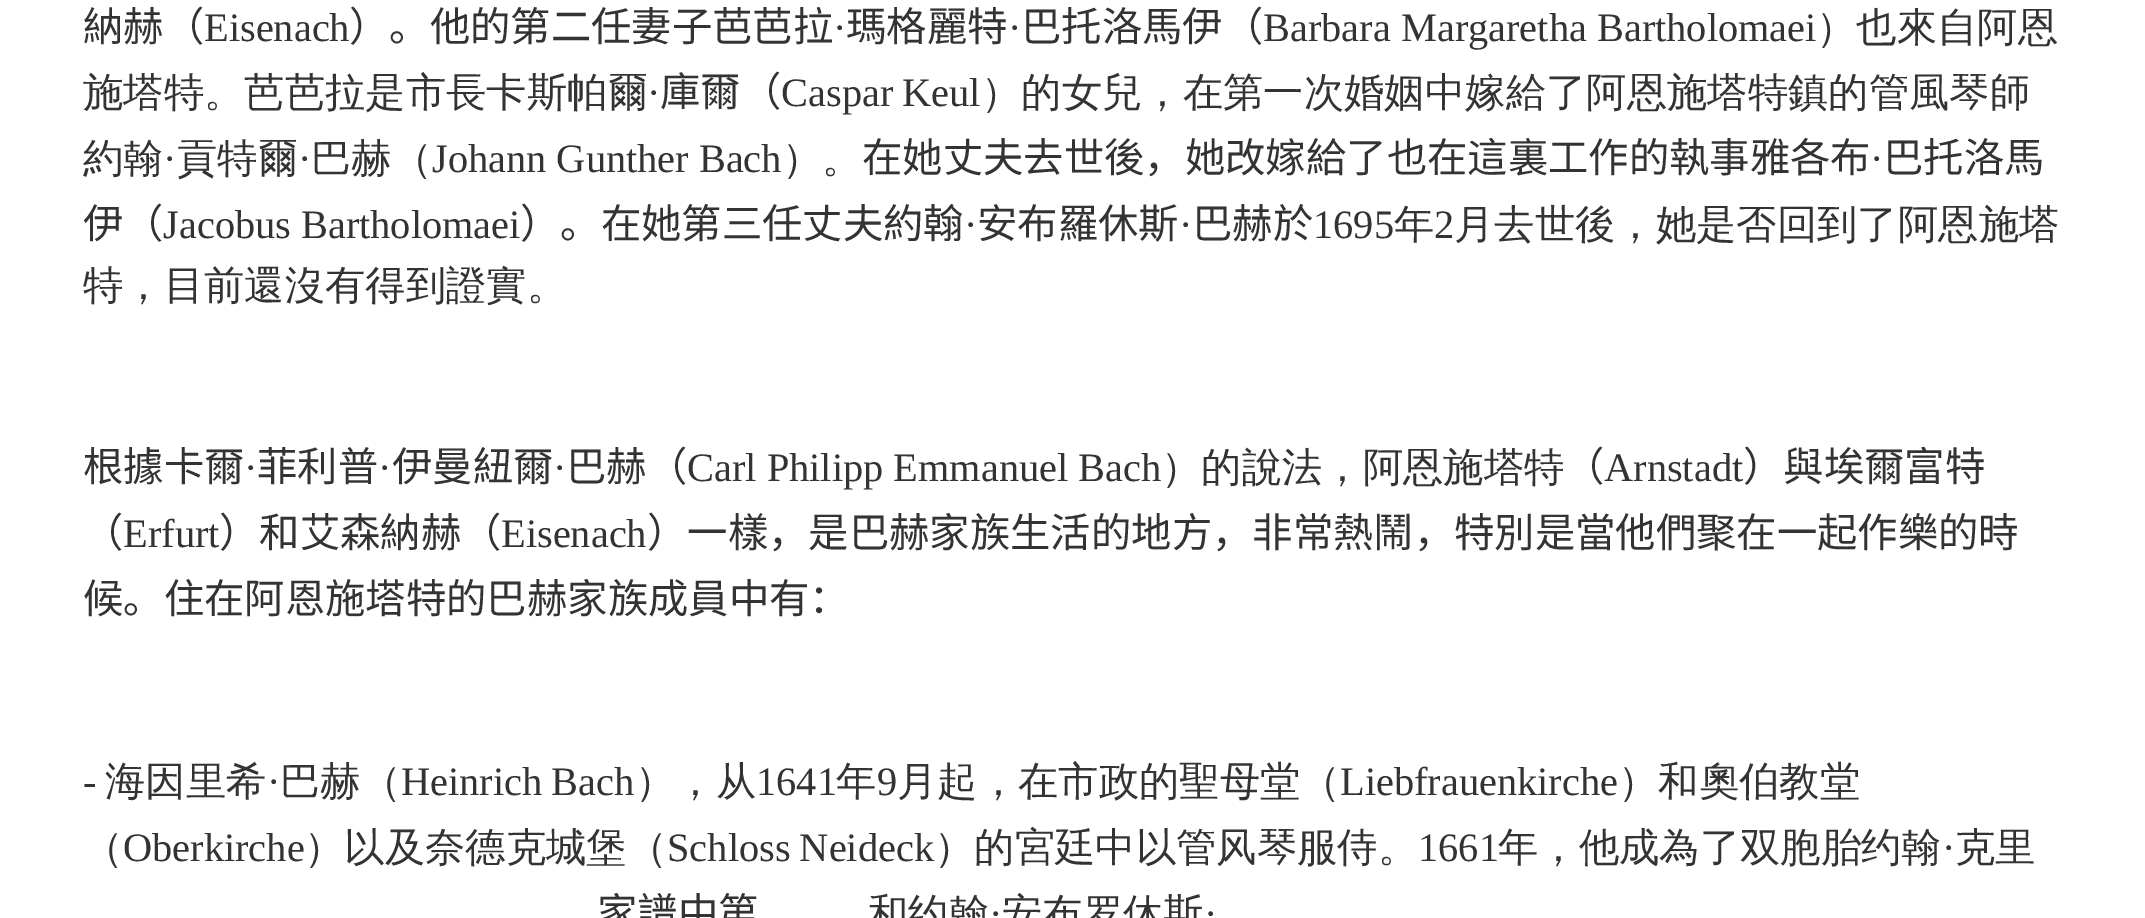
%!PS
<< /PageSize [2145 918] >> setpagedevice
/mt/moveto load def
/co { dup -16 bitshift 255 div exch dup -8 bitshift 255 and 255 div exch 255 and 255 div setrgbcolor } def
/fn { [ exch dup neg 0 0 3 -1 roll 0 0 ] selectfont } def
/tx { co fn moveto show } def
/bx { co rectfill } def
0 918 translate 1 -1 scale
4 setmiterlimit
0 0 2145 918 16#FFFFFF bx
(納赫（) 83 41 /NotoSansCJKSC-Regular 40.35 16#333333 tx
(Eisenach) 204 41 /LiberationSerif-Regular 40.35 16#333333 tx
(）。他的第二任妻子芭芭拉) 349 41 /NotoSansCJKSC-Regular 40.35 16#333333 tx
(·) 833 41 /LiberationSerif-Regular 40.35 16#333333 tx
(瑪格麗特) 846 41 /NotoSansCJKSC-Regular 40.35 16#333333 tx
(·) 1008 41 /LiberationSerif-Regular 40.35 16#333333 tx
(巴托洛馬伊（) 1021 41 /NotoSansCJKSC-Regular 40.35 16#333333 tx
(Barbara Margaretha Bartholomaei) 1263 41 /LiberationSerif-Regular 40.35 16#333333 tx
(）也來自阿恩) 1816 41 /WenQuanYiZenHei-Medium 40.35 16#333333 tx
(施塔特。芭芭拉是市長卡斯帕爾) 83 106 /WenQuanYiZenHei-Medium 40.35 16#333333 tx
(·) 647 106 /LiberationSerif-Regular 40.35 16#333333 tx
(庫爾（) 660 106 /NotoSansCJKSC-Regular 40.35 16#333333 tx
/LiberationSerif-Regular 40.35 fn
781 106 mt -1 0 32 (Caspar Keul) widthshow
(）的女兒，在第一次婚姻中嫁給了阿恩施塔特鎮的管風琴師) 981 106 /WenQuanYiZenHei-Medium 40.35 16#333333 tx
(約翰) 83 172 /WenQuanYiZenHei-Medium 40.35 16#333333 tx
(·) 163 172 /LiberationSerif-Regular 40.35 16#333333 tx
(貢特爾) 177 172 /WenQuanYiZenHei-Medium 40.35 16#333333 tx
(·) 298 172 /LiberationSerif-Regular 40.35 16#333333 tx
(巴赫（) 311 172 /WenQuanYiZenHei-Medium 40.35 16#333333 tx
(Johann Gunther Bach) 432 172 /LiberationSerif-Regular 40.35 16#333333 tx
(）。) 782 172 /WenQuanYiZenHei-Medium 40.35 16#333333 tx
(在她丈夫去世後，她改嫁給了也在這裏工作的執事雅各布) 862 172 /NotoSansCJKSC-Regular 40.35 16#333333 tx
(·) 1870 172 /LiberationSerif-Regular 40.35 16#333333 tx
(巴托洛馬) 1883 172 /NotoSansCJKSC-Regular 40.35 16#333333 tx
(伊（) 83 238 /NotoSansCJKSC-Regular 40.35 16#333333 tx
(Jacobus Bartholomaei) 163 238 /LiberationSerif-Regular 40.35 16#333333 tx
(）。在她第三任丈夫約翰) 520 238 /NotoSansCJKSC-Regular 40.35 16#333333 tx
(·) 964 238 /LiberationSerif-Regular 40.35 16#333333 tx
(安布羅休斯) 977 238 /NotoSansCJKSC-Regular 40.35 16#333333 tx
(·) 1179 238 /LiberationSerif-Regular 40.35 16#333333 tx
(巴赫於) 1192 238 /NotoSansCJKSC-Regular 40.35 16#333333 tx
(1695) 1313 238 /LiberationSerif-Regular 40.35 16#333333 tx
(年) 1394 238 /WenQuanYiZenHei-Medium 40.35 16#333333 tx
(2) 1434 238 /LiberationSerif-Regular 40.35 16#333333 tx
(月去世後，她是否回到了阿恩施塔) 1454 238 /WenQuanYiZenHei-Medium 40.35 16#333333 tx
(特，目前還沒有得到證實。) 83 299 /WenQuanYiZenHei-Medium 40.35 16#333333 tx
(根據卡爾) 83 481 /NotoSansCJKSC-Regular 40.35 16#333333 tx
(·) 244 481 /LiberationSerif-Regular 40.35 16#333333 tx
(菲利普) 257 481 /NotoSansCJKSC-Regular 40.35 16#333333 tx
(·) 378 481 /LiberationSerif-Regular 40.35 16#333333 tx
(伊曼紐爾) 392 481 /NotoSansCJKSC-Regular 40.35 16#333333 tx
(·) 553 481 /LiberationSerif-Regular 40.35 16#333333 tx
(巴赫（) 566 481 /NotoSansCJKSC-Regular 40.35 16#333333 tx
(Carl Philipp Emmanuel Bach) 687 481 /LiberationSerif-Regular 40.35 16#333333 tx
(）的說法，阿恩施塔特) 1161 481 /WenQuanYiZenHei-Medium 40.35 16#333333 tx
(（) 1564 481 /NotoSansCJKSC-Regular 40.35 16#333333 tx
(Arnstadt) 1604 481 /LiberationSerif-Regular 40.35 16#333333 tx
(）與埃爾富特) 1743 481 /NotoSansCJKSC-Regular 40.35 16#333333 tx
(（) 83 547 /NotoSansCJKSC-Regular 40.35 16#333333 tx
(Erfurt) 123 547 /LiberationSerif-Regular 40.35 16#333333 tx
(）和艾森納赫（) 219 547 /NotoSansCJKSC-Regular 40.35 16#333333 tx
(Eisenach) 501 547 /LiberationSerif-Regular 40.35 16#333333 tx
(）一樣，是巴赫家族生活的地方，非常熱鬧，特別是當他們聚在一起作樂的時) 647 547 /NotoSansCJKSC-Regular 40.35 16#333333 tx
(候。住在阿恩施塔特的巴赫家族成員中有：) 83 613 /NotoSansCJKSC-Regular 40.35 16#333333 tx
(海因里希) 105 795 /WenQuanYiZenHei-Medium 40.35 16#333333 tx
(·) 267 795 /LiberationSerif-Regular 40.35 16#333333 tx
(巴赫（) 280 795 /WenQuanYiZenHei-Medium 40.35 16#333333 tx
/LiberationSerif-Regular 40.35 fn
401 795 mt -1 0 32 (Heinrich Bach) widthshow
(），从) 635 795 /WenQuanYiZenHei-Medium 40.35 16#333333 tx
(1641) 756 795 /LiberationSerif-Regular 40.35 16#333333 tx
(年) 836 795 /WenQuanYiZenHei-Medium 40.35 16#333333 tx
(9) 877 795 /LiberationSerif-Regular 40.35 16#333333 tx
(月起，在市政的聖母堂（) 897 795 /WenQuanYiZenHei-Medium 40.35 16#333333 tx
(Liebfrauenkirche) 1340 795 /LiberationSerif-Regular 40.35 16#333333 tx
(）和奧伯教堂) 1618 795 /WenQuanYiZenHei-Medium 40.35 16#333333 tx
(-) 83 795 /LiberationSerif-Regular 40.35 16#333333 tx
(（) 83 861 /WenQuanYiZenHei-Medium 40.35 16#333333 tx
(Oberkirche) 123 861 /LiberationSerif-Regular 40.35 16#333333 tx
(）以及奈德克城堡（) 304 861 /WenQuanYiZenHei-Medium 40.35 16#333333 tx
/LiberationSerif-Regular 40.35 fn
667 861 mt -1 0 32 (Schloss Neideck) widthshow
(）的宮廷中以管风琴服侍。) 934 861 /WenQuanYiZenHei-Medium 40.35 16#333333 tx
(1661) 1418 861 /LiberationSerif-Regular 40.35 16#333333 tx
(年，他成為了双胞胎约翰) 1498 861 /WenQuanYiZenHei-Medium 40.35 16#333333 tx
(·) 1942 861 /LiberationSerif-Regular 40.35 16#333333 tx
(克里) 1955 861 /WenQuanYiZenHei-Medium 40.35 16#333333 tx
(家譜中第) 597 927 /NotoSansCJKSC-Regular 40.35 16#333333 tx
(和约翰) 868 927 /WenQuanYiZenHei-Medium 40.35 16#333333 tx
(·) 989 927 /LiberationSerif-Regular 40.35 16#333333 tx
(安布罗休斯) 1002 927 /WenQuanYiZenHei-Medium 40.35 16#333333 tx
(·) 1204 927 /LiberationSerif-Regular 40.35 16#333333 tx
showpage
